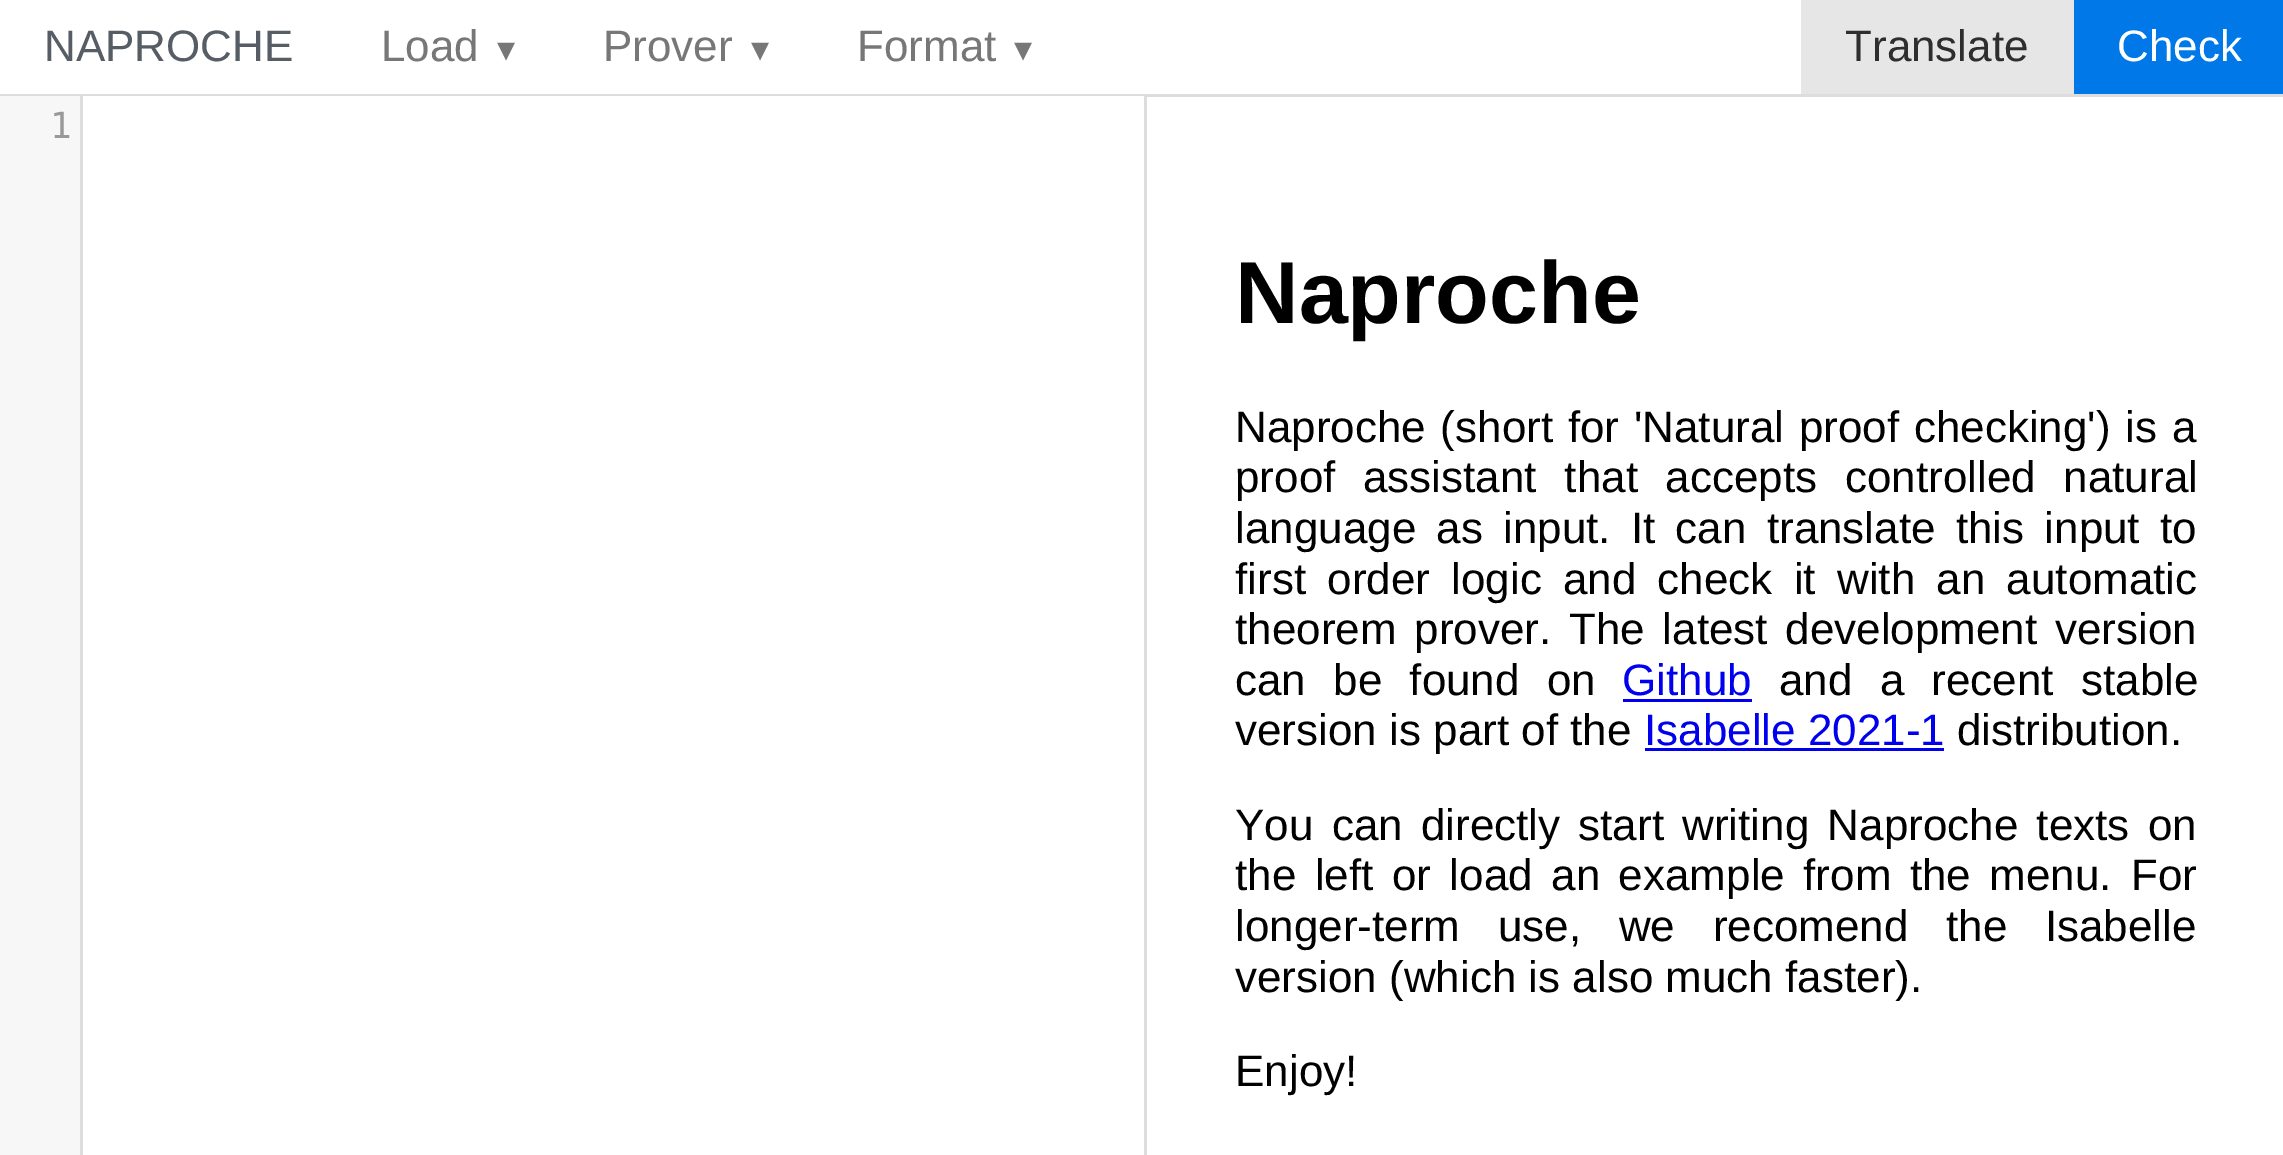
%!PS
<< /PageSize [2283 1155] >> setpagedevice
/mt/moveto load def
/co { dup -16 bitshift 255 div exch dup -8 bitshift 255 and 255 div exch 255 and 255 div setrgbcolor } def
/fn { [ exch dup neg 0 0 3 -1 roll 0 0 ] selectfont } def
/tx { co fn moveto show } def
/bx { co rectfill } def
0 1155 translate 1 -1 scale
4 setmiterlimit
0 0 2283 1155 16#FFFFFF bx
0 94 2283 3 16#DDDDDD bx
1801 0 273 94 16#E6E6E6 bx
2074 0 209 94 16#0078E7 bx
83 96 1061 1 16#FFFFFF bx
0 96 80 1059 16#F7F7F7 bx
80 96 3 1059 16#DDDDDD bx
1144 96 3 1059 16#DDDDDD bx
1623 699 129 3 16#0000EE bx
1645 748 299 3 16#0000EE bx
(NAPROCHE) 44 61 /LiberationSans-Regular 44 16#565D64 tx
(Load) 381 61 /LiberationSans-Regular 44 16#777777 tx
(▾) 497 61 /DejaVuSans-Regular 36 16#777777 tx
(Prover) 603 61 /LiberationSans-Regular 44 16#777777 tx
(▾) 751 61 /DejaVuSans-Regular 36 16#777777 tx
(Format) 857 61 /LiberationSans-Regular 44 16#777777 tx
(▾) 1014 61 /DejaVuSans-Regular 36 16#777777 tx
(Translate) 1845 61 /LiberationSans-Regular 44 16#2E2E2E tx
(Check) 2117 61 /LiberationSans-Regular 44 16#FFFFFF tx
(1) 50 138 /DejaVuSansMono-Regular 36 16#999999 tx
(Naproche) 1235 323 /LiberationSans-Bold 88 16#000000 tx
/LiberationSans-Regular 44 fn
1235 442 mt 2.5 0 32 (Naproche \(short for 'Natural proof checking'\) is a) widthshow
1235 492 mt 15.5 0 32 (proof assistant that accepts controlled natural) widthshow
1235 543 mt 8 0 32 (language as input. It can translate this input to) widthshow
1235 594 mt 9 0 32 (first order logic and check it with an automatic) widthshow
1235 644 mt 5.5 0 32 (theorem prover. The latest development version) widthshow
1235 695 mt 15 0 32 (can be found on) widthshow
(Github) 1622 695 /LiberationSans-Regular 44 16#0000EE tx
16#000000 co
1779 695 mt 15 0 32 (and a recent stable) widthshow
(version is part of the) 1235 745 /LiberationSans-Regular 44 16#000000 tx
(Isabelle 2021-1) 1644 745 /LiberationSans-Regular 44 16#0000EE tx
(distribution.) 1957 745 /LiberationSans-Regular 44 16#000000 tx
1235 840 mt 6 0 32 (You can directly start writing Naproche texts on) widthshow
1235 890 mt 6.25 0 32 (the left or load an example from the menu.) widthshow
(For) 2131 890 /LiberationSans-Regular 44 16#000000 tx
1235 941 mt 25.5 0 32 (longer-term use, we recomend the Isabelle) widthshow
(version \(which is also much faster\).) 1235 992 /LiberationSans-Regular 44 16#000000 tx
(Enjoy!) 1235 1086 /LiberationSans-Regular 44 16#000000 tx
showpage
